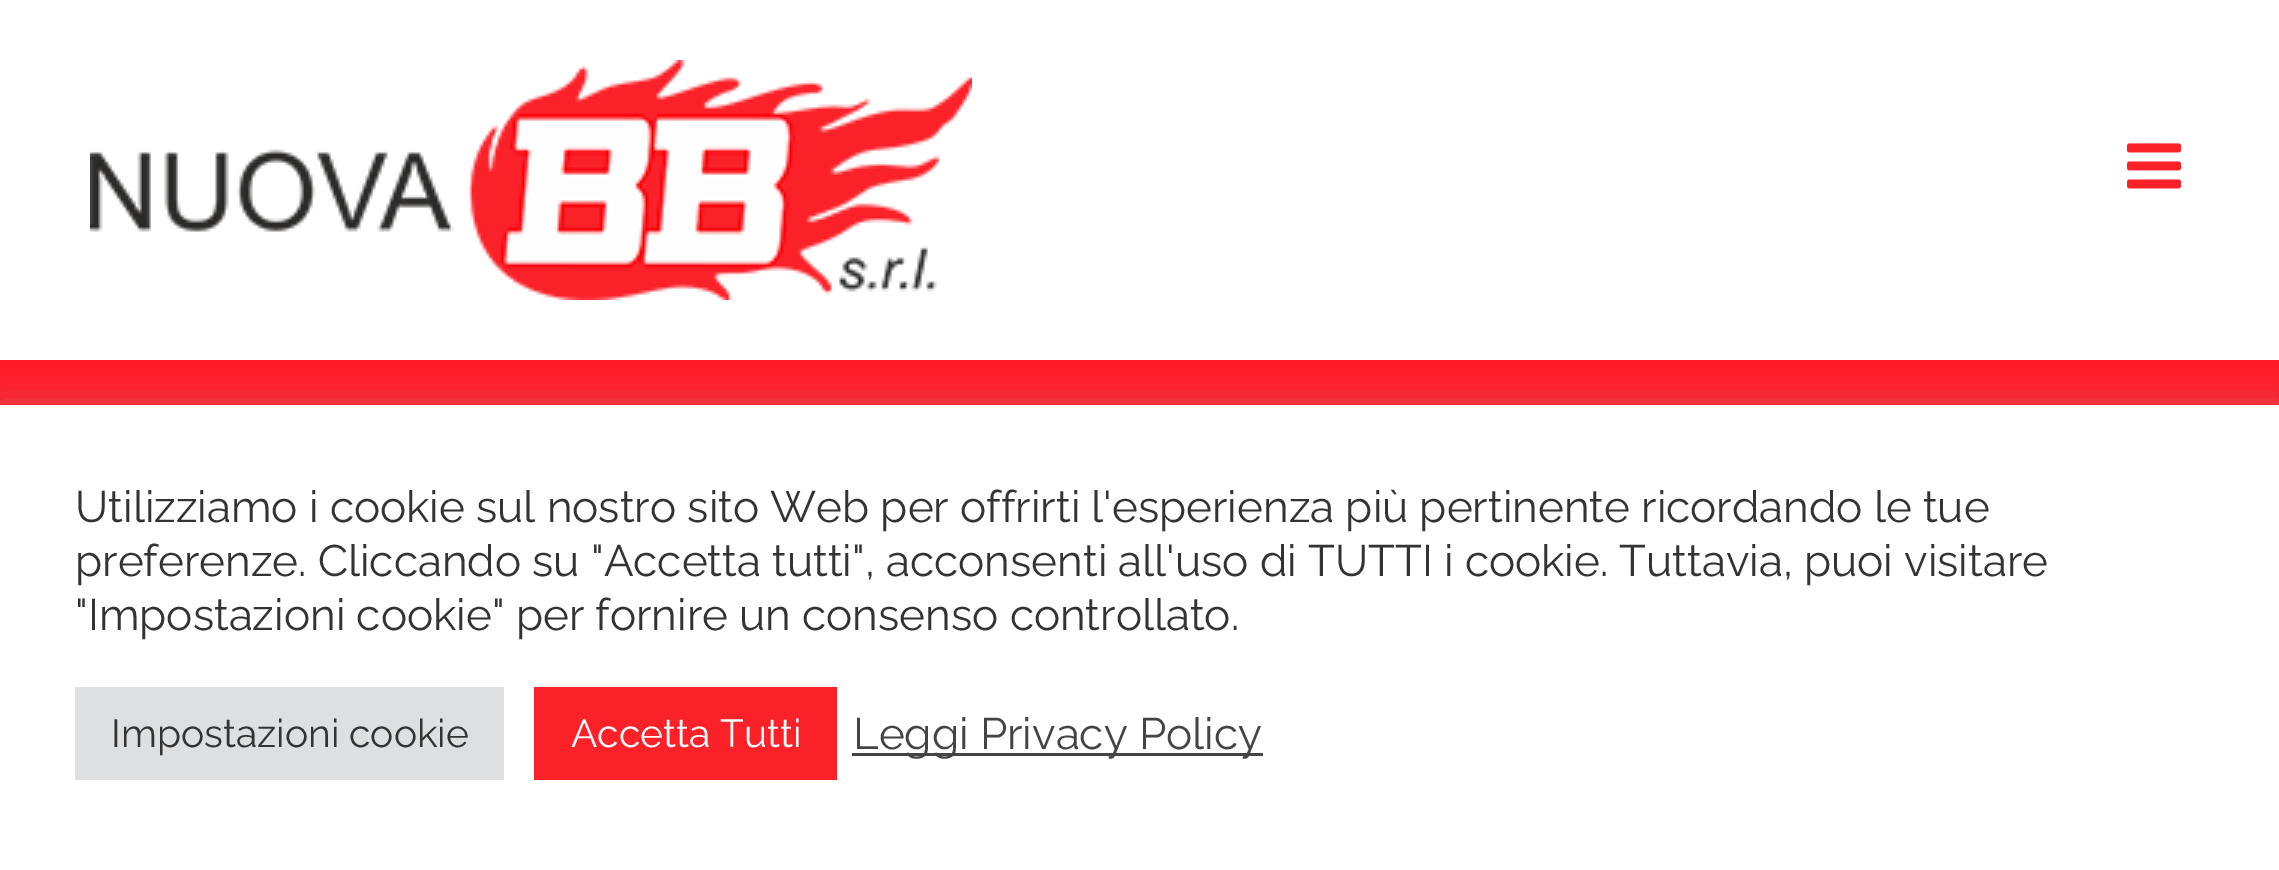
%!PS
<< /PageSize [2279 870] /PageUsesTransparency true >> setpagedevice
/co { dup -16 bitshift 255 div exch dup -8 bitshift 255 and 255 div exch 255 and 255 div setrgbcolor } def
/fn { [ exch dup neg 0 0 3 -1 roll 0 0 ] selectfont } def
/tx { co fn moveto show } def
/bx { co rectfill } def
/al { dup .setfillconstantalpha .setstrokeconstantalpha } def
/rr { 5 dict begin { /r /h /w /y /x } { exch def } forall
  x r add y moveto x w add y 2 copy h add r arct x w add y h add x 1 index r arct
  x y h add x y r arct x y 2 copy exch w add exch r arct closepath end } def
/sh { 12 dict begin { /a /b /q /h /w /y /x } { exch def } forall gsave /was 0 def
  9 -2 -9 { dup b mul 4 div /e exch def 1 sub .425 mul 2.718 exch exp 1 add a .99 .min exch div /now exch def
    1 1 now sub 1 was sub div sub al /was now def
    w h .min e 2 mul add 0 gt { x e sub y e sub w e 2 mul add h e 2 mul add
      q e add b .6 mul add w h .min 2 div e add .min 0 .max rr fill } if } for grestore end } def
/im { 5 dict begin { /h /w /y /x /name } { exch def } forall
  gsave x y translate w h scale
  w h 8 [w 0 0 h 0 0] name (r) file false 3 colorimage grestore end } def
0 .pushpdf14devicefilter
0 870 translate 1 -1 scale
4 setmiterlimit
0 0 2279 870 16#FFFFFF bx
(media/1.raw) 90 60 882 240 im
(media/2.raw) 2127 143 54 46 im
0 360 2279 45 16#FF1C29 bx
16#ACABAB co
0 402 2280 465 0 15 .3 sh
0 405 2279 465 16#FFFFFF bx
75 687 429 93 16#DEDFE0 bx
534 687 303 93 16#FA2129 bx
852 753 411 3 16#444444 bx
(Utilizziamo i cookie sul nostro sito Web per offrirti l'esperienza più pertinente ricordando le tue) 75 522 /Raleway-Regular 44 16#333333 tx
(preferenze. Cliccando su "Accetta tutti", acconsenti all'uso di TUTTI i cookie. Tuttavia, puoi visitare) 75 576 /Raleway-Regular 44 16#333333 tx
("Impostazioni cookie" per fornire un consenso controllato.) 75 630 /Raleway-Regular 44 16#333333 tx
(Impostazioni cookie) 111 747 /Raleway-Regular 39 16#333333 tx
(Accetta Tutti) 571 747 /Raleway-Regular 39 16#FFFFFF tx
(Leggi Privacy Policy) 853 749 /Raleway-Regular 44 16#444444 tx
.poppdf14devicefilter showpage
